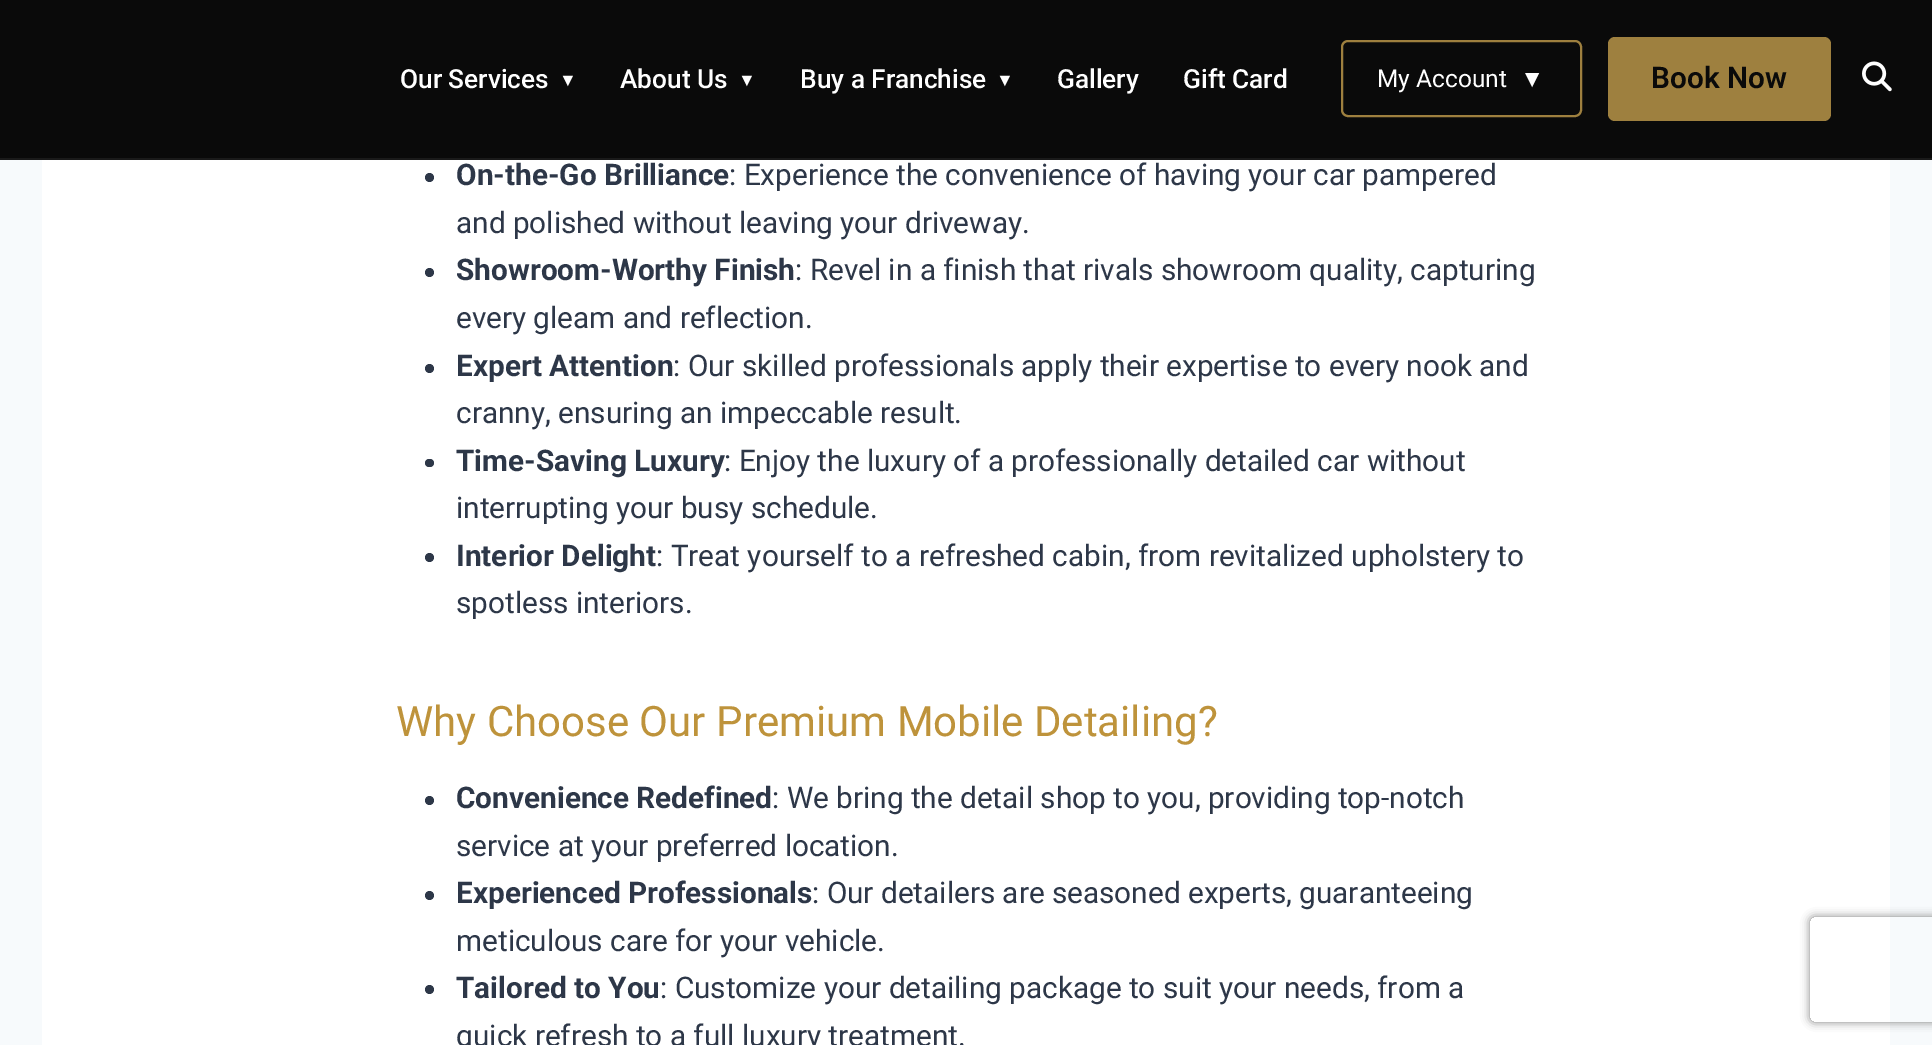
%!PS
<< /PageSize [1932 1045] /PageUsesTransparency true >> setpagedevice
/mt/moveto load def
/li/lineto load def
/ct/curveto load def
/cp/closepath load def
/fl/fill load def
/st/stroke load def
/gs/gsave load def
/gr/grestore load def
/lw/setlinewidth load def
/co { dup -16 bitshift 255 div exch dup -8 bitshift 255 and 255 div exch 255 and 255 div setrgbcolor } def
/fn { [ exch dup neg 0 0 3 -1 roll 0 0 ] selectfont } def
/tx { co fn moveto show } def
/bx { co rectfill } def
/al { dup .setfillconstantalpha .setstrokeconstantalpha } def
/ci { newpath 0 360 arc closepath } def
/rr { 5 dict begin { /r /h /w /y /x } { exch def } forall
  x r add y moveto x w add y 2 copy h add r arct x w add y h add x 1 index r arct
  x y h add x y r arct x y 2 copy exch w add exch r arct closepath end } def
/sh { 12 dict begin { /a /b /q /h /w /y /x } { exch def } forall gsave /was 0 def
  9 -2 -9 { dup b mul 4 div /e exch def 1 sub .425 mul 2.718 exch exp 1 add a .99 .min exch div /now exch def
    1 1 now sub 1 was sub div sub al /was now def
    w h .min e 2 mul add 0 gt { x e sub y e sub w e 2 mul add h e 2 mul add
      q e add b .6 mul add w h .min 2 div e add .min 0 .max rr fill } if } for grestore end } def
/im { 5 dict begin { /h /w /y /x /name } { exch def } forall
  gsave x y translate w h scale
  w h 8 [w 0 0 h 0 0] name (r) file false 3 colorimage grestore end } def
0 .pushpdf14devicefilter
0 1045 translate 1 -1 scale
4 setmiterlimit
0 0 1932 1045 16#F7FAFC bx
0 0 1932 158 16#0A0A0A bx
0 158 1932 2 16#1A1A1A bx
16#9E803F co
2 lw
1342 41 239 75 6 rr st
1608 37 223 84 7 rr fl
(media/1.raw) 1862 61 30 31 im
42 160 1848 885 16#FFFFFF bx
16#2D3748 co
429.5 177.5 4.5 ci fl
429.5 272.5 4.5 ci fl
429.5 368.5 4.5 ci fl
425 459 9 8 4 rr fl
429.5 557.5 4.5 ci fl
429.5 800.5 4.5 ci fl
429.5 895.5 4.5 ci fl
429.5 989.5 4.5 ci fl
gs
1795 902 mt 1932 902 li 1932 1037 li 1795 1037 li cp 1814 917 mt 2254 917 li 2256 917 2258 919 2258 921 ct 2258 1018 li 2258 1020 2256 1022 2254 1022 ct 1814 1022 li 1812 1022 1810 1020 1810 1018 ct 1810 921 li 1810 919 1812 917 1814 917 ct cp eoclip newpath
16#808080 co
1810 917 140 105 4 4.5 1 sh
gr
(Our Services) 400 88 /Roboto-Medium 26.25 16#FFFFFF tx
(▼) 559 86 /LiberationSans-Regular 18 16#FFFFFF tx
(About Us) 620 88 /Roboto-Medium 26.25 16#FFFFFF tx
(▼) 738 86 /LiberationSans-Regular 18 16#FFFFFF tx
(Buy a Franchise) 800 88 /Roboto-Medium 26.25 16#FFFFFF tx
(▼) 996 86 /LiberationSans-Regular 18 16#FFFFFF tx
(Gallery) 1057 88 /Roboto-Medium 26.25 16#FFFFFF tx
(Gift Card) 1183 88 /Roboto-Medium 26.25 16#FFFFFF tx
(My Account) 1377 87 /Roboto-Regular 24.5 16#FFFFFF tx
(▼) 1520 87 /LiberationSans-Regular 24.5 16#FFFFFF tx
(Book Now) 1651 88 /Roboto-SemiBold 29.75 16#0A0A0A tx
(On-the-Go Brilliance) 456 185 /Roboto-Bold 29.75 16#2D3748 tx
(: Experience the convenience of having your car pampered) 729 185 /Roboto-Regular 29.75 16#2D3748 tx
(and polished without leaving your driveway.) 456 233 /Roboto-Regular 29.75 16#2D3748 tx
(Showroom-Worthy Finish) 456 280 /Roboto-Bold 29.75 16#2D3748 tx
(: Revel in a finish that rivals showroom quality, capturing) 795 280 /Roboto-Regular 29.75 16#2D3748 tx
(every gleam and reflection.) 456 328 /Roboto-Regular 29.75 16#2D3748 tx
(Expert Attention) 456 376 /Roboto-Bold 29.75 16#2D3748 tx
(: Our skilled professionals apply their expertise to every nook and) 673 376 /Roboto-Regular 29.75 16#2D3748 tx
(cranny, ensuring an impeccable result.) 456 423 /Roboto-Regular 29.75 16#2D3748 tx
(Time-Saving Luxury) 456 471 /Roboto-Bold 29.75 16#2D3748 tx
(: Enjoy the luxury of a professionally detailed car without) 724 471 /Roboto-Regular 29.75 16#2D3748 tx
(interrupting your busy schedule.) 456 518 /Roboto-Regular 29.75 16#2D3748 tx
(Interior Delight) 456 566 /Roboto-Bold 29.75 16#2D3748 tx
(: Treat yourself to a refreshed cabin, from revitalized upholstery to) 656 566 /Roboto-Regular 29.75 16#2D3748 tx
(spotless interiors.) 456 613 /Roboto-Regular 29.75 16#2D3748 tx
(Why Choose Our Premium Mobile Detailing?) 396 736 /Roboto-Regular 42 16#BE933B tx
(Convenience Redefined) 456 808 /Roboto-Bold 29.75 16#2D3748 tx
(: We bring the detail shop to you, providing top-notch) 772 808 /Roboto-Regular 29.75 16#2D3748 tx
(service at your preferred location.) 456 856 /Roboto-Regular 29.75 16#2D3748 tx
(Experienced Professionals) 456 903 /Roboto-Bold 29.75 16#2D3748 tx
(: Our detailers are seasoned experts, guaranteeing) 812 903 /Roboto-Regular 29.75 16#2D3748 tx
(meticulous care for your vehicle.) 456 951 /Roboto-Regular 29.75 16#2D3748 tx
(Tailored to You) 456 998 /Roboto-Bold 29.75 16#2D3748 tx
(: Customize your detailing package to suit your needs, from a) 660 998 /Roboto-Regular 29.75 16#2D3748 tx
(quick refresh to a full luxury treatment.) 456 1046 /Roboto-Regular 29.75 16#2D3748 tx
.poppdf14devicefilter showpage
